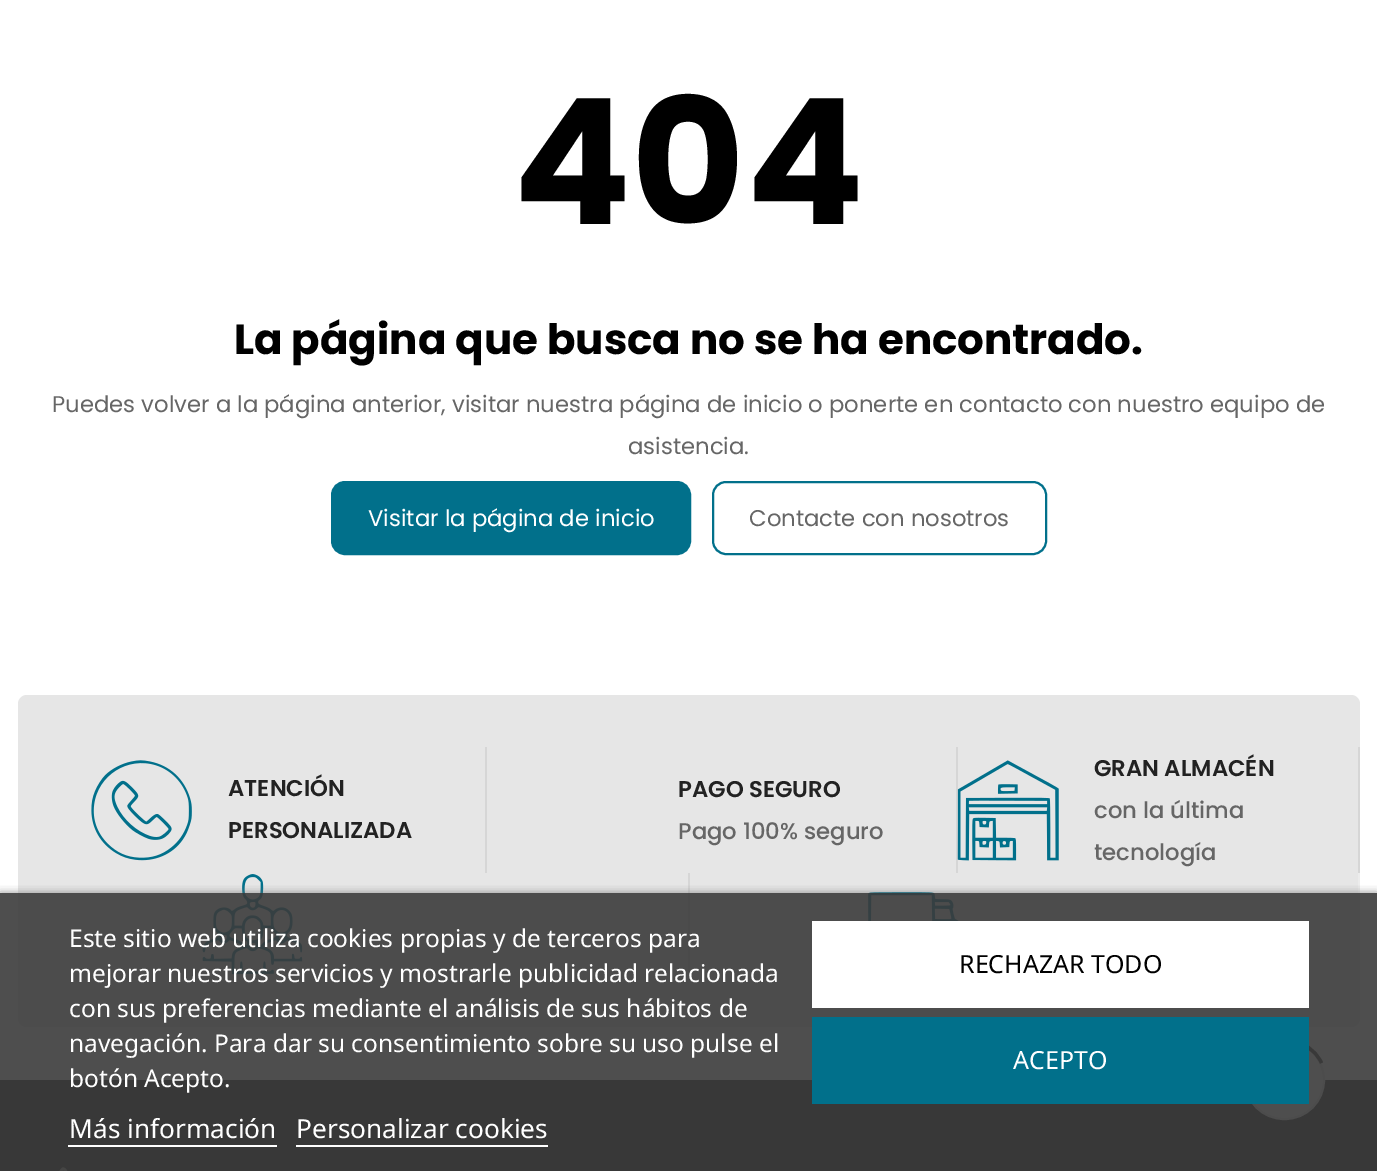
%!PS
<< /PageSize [1377 1171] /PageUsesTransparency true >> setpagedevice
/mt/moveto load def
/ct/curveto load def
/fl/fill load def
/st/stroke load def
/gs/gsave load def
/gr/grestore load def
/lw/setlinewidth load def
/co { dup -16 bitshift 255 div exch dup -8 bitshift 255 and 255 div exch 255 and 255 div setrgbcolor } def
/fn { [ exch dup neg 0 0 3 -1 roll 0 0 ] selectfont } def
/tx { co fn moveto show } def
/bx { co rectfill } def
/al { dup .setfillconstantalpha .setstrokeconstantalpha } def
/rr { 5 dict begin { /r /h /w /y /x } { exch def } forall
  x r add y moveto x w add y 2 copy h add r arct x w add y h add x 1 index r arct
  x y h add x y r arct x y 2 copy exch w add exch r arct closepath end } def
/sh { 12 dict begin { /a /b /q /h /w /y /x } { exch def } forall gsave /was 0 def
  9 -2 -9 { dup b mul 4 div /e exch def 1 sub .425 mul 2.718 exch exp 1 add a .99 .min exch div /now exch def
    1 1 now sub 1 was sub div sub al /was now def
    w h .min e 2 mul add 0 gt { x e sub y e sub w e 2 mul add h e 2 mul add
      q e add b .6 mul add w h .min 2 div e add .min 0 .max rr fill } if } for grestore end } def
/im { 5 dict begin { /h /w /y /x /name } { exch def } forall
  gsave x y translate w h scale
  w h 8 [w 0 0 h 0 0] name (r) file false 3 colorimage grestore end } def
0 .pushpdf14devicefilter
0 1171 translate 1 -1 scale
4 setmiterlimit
0 0 1377 1171 16#FFFFFF bx
16#01708B co
332 482 358 72 13 rr gs fl gr
2 lw
st
713 482 333 72 13 rr st
16#E6E6E6 co
18 695 1342 332 9 rr fl
485 747 2 126 16#D6D6D6 bx
(media/1.raw) 91 760 101 101 im
956 747 2 126 16#D6D6D6 bx
1358 747 2 126 16#D6D6D6 bx
(media/2.raw) 957 760 102 101 im
688 873 2 102 16#D6D6D6 bx
(media/3.raw) 202 874 101 101 im
1358 873 2 102 16#ECECEC bx
(media/4.raw) 868 892 91 29 im
0 1080 1377 91 16#1D1D1B bx
(media/5.raw) 59 1167 9 4 im
16#FFFFFF co
1245 1041 79 78 39 rr gs fl gr
16#E7E7E7 co
st
16#222222 co
3.3 lw
1284.5 1039.5 mt 1301 1039.5 1315 1049 1321.5 1063 ct st
gs
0 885 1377 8 rectclip
16#707070 co
0 894 1377 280 0 4.5 1 sh
gr
0.9 al
0 893 1377 278 16#3B3B3B bx
1 al
68 1145 209 2 16#FFFFFF bx
296 1145 252 2 16#FFFFFF bx
812 921 497 87 16#FFFFFF bx
812 1017 497 87 16#01708B bx
(404) 513 224 /Poppins-Bold 175 16#000000 tx
(La página que busca no se ha encontrado.) 234 354 /Poppins-Bold 42 16#000000 tx
(Puedes volver a la página anterior, visitar nuestra página de inicio o ponerte en contacto con nuestro equipo de) 52 412 /Poppins-Regular 22.75 16#666666 tx
(asistencia.) 628 454 /Poppins-Regular 22.75 16#666666 tx
(Visitar la página de inicio) 368 526 /Poppins-Regular 22.75 16#FFFFFF tx
(Contacte con nosotros) 749 526 /Poppins-Regular 22.75 16#666666 tx
(ATENCIÓN) 228 796 /Poppins-SemiBold 22.75 16#222222 tx
(PERSONALIZADA) 228 838 /Poppins-SemiBold 22.75 16#222222 tx
(PAGO SEGURO) 678 797 /Poppins-SemiBold 22.75 16#222222 tx
(Pago 100% seguro) 678 839 /Poppins-Medium 22.75 16#666666 tx
(GRAN ALMACÉN) 1094 776 /Poppins-SemiBold 22.75 16#222222 tx
(con la última) 1094 818 /Poppins-Medium 22.75 16#666666 tx
(tecnología) 1094 860 /Poppins-Medium 22.75 16#666666 tx
(Este sitio web utiliza cookies propias y de terceros para) 69 947 /NotoSans-Regular 24.5 16#FFFFFF tx
(mejorar nuestros servicios y mostrarle publicidad relacionada) 69 982 /NotoSans-Regular 24.5 16#FFFFFF tx
(con sus preferencias mediante el análisis de sus hábitos de) 69 1017 /NotoSans-Regular 24.5 16#FFFFFF tx
(navegación. Para dar su consentimiento sobre su uso pulse el) 69 1052 /NotoSans-Regular 24.5 16#FFFFFF tx
(botón Acepto.) 69 1087 /NotoSans-Regular 24.5 16#FFFFFF tx
(Más información) 69 1138 /NotoSans-Regular 26.25 16#FFFFFF tx
(Personalizar cookies) 296 1138 /NotoSans-Regular 26.25 16#FFFFFF tx
(RECHAZAR TODO) 959 973 /NotoSans-Regular 25 16#000000 tx
(ACEPTO) 1013 1069 /NotoSans-Regular 25 16#FFFFFF tx
.poppdf14devicefilter showpage
